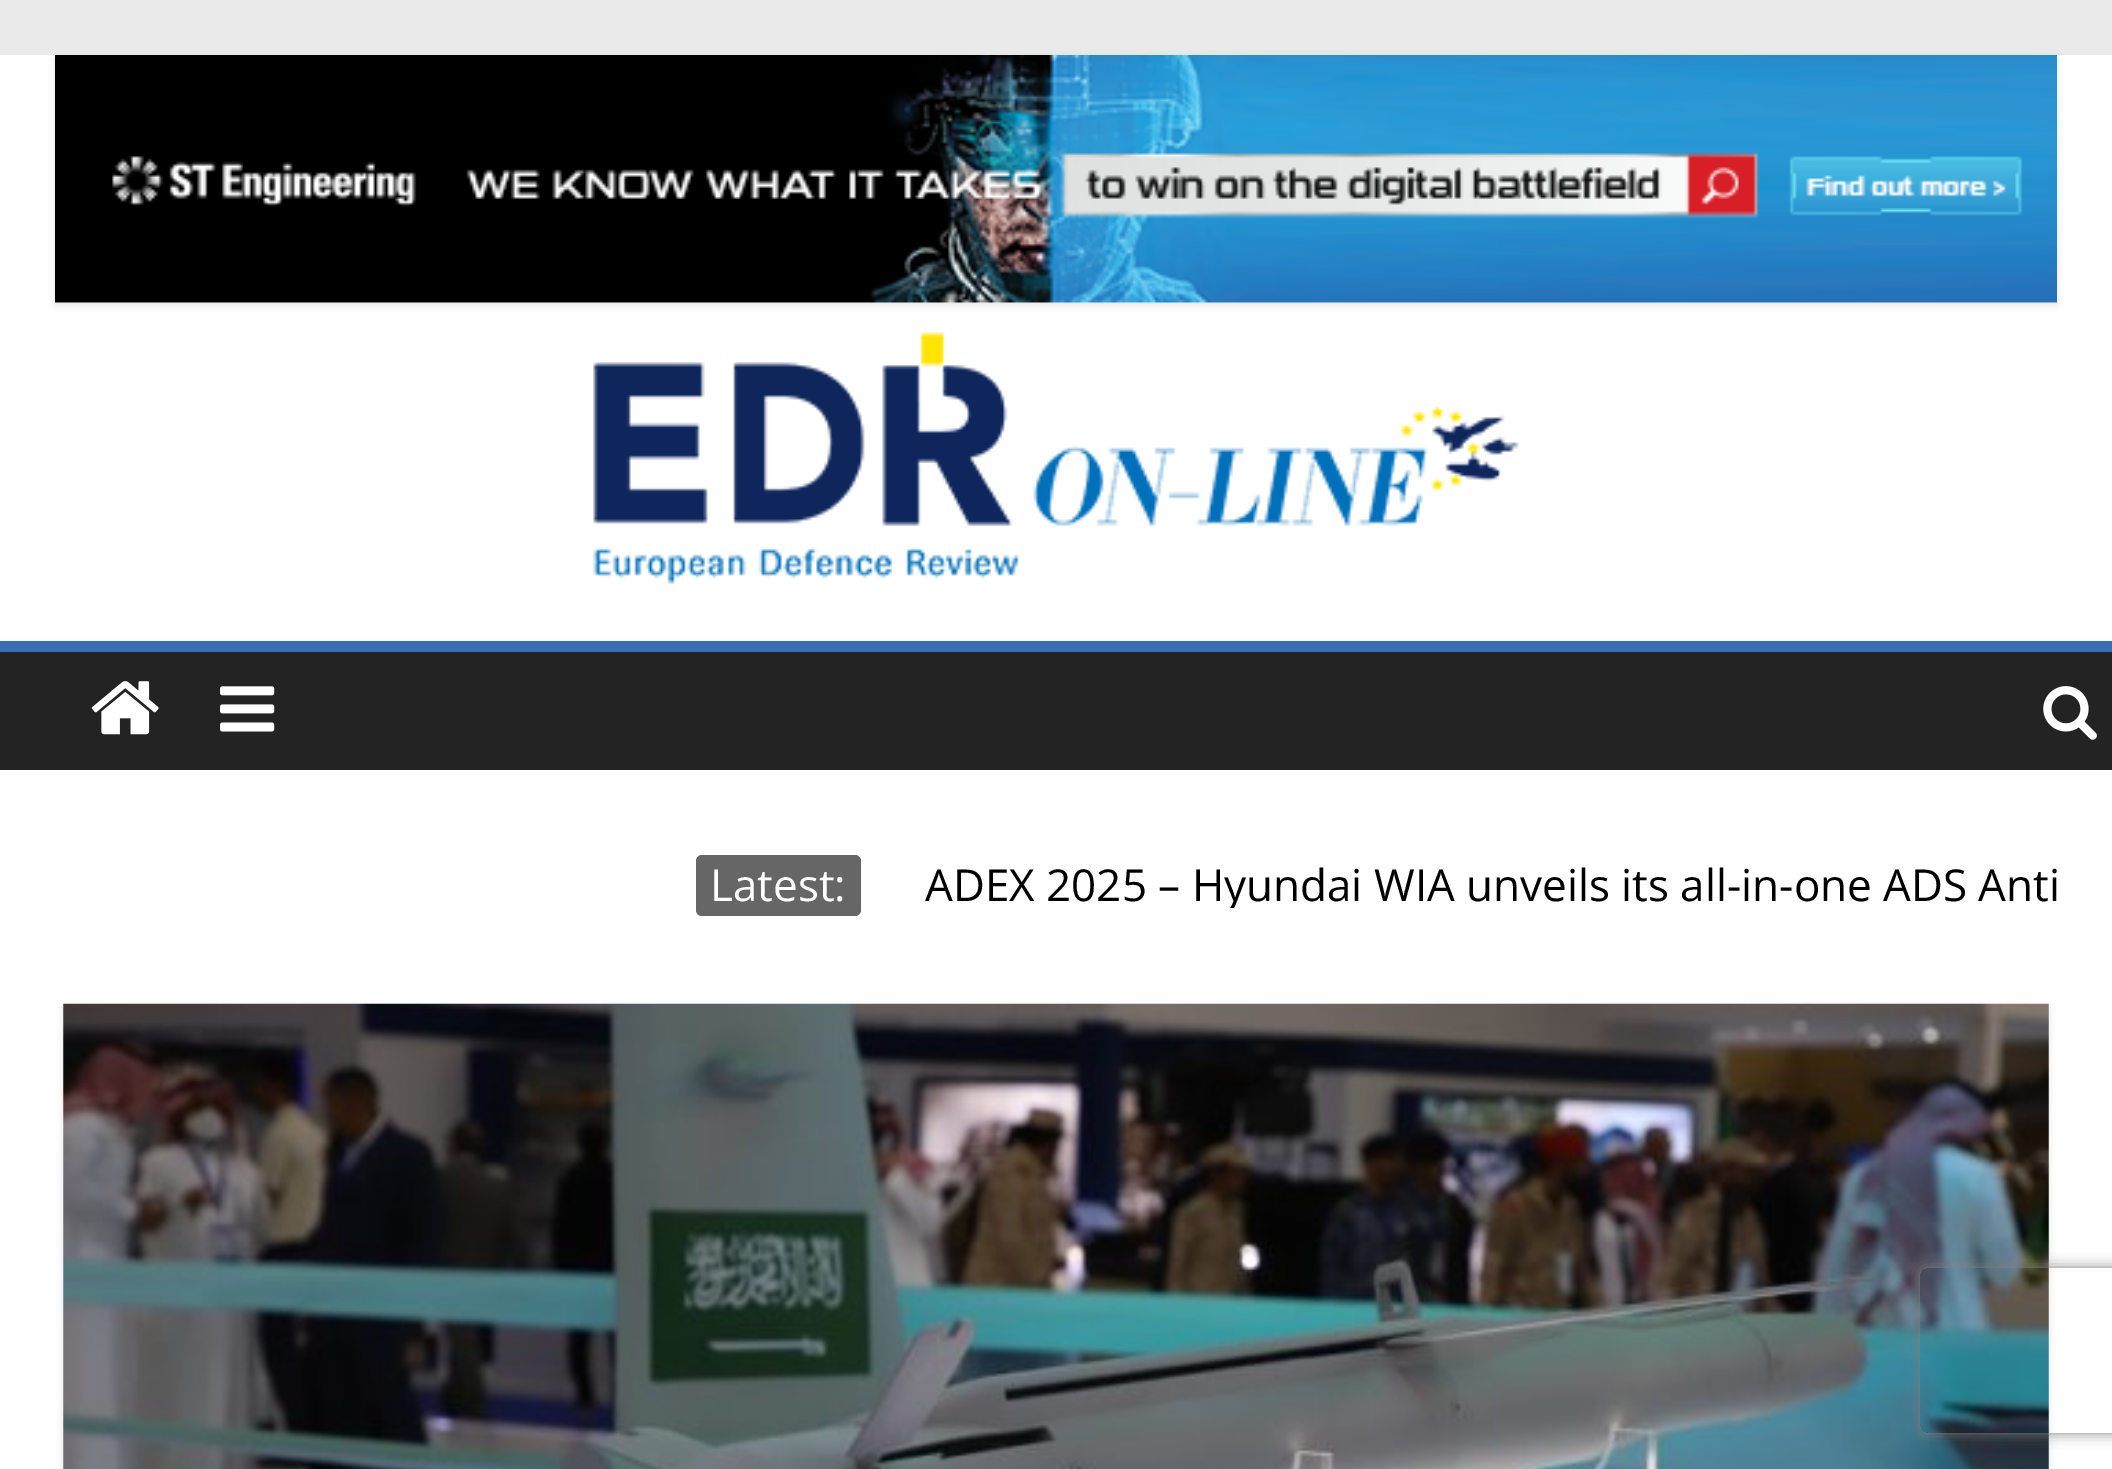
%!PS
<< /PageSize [2112 1469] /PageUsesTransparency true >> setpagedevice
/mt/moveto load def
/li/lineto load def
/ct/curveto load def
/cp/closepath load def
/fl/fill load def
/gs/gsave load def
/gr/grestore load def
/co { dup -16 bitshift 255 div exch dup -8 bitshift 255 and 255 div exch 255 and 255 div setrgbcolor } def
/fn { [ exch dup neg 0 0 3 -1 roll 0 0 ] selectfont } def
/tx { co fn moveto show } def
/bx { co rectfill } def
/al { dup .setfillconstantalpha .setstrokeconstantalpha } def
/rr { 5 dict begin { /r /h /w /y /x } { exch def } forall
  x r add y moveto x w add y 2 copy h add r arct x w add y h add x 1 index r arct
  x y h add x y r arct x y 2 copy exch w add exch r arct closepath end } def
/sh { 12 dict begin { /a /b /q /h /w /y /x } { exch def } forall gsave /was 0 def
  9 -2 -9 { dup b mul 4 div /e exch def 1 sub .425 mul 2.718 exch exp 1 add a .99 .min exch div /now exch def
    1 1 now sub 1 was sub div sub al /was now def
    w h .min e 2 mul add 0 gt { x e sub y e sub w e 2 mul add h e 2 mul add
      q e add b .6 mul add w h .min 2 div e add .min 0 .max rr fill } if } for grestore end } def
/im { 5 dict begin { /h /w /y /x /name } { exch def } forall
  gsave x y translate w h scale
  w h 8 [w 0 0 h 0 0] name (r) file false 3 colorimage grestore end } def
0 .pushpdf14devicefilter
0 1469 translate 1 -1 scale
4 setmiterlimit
0 0 2112 1469 16#EAEAEA bx
0 55 2112 586 16#FFFFFF bx
16#000000 co
55 58 2002 247 0 4 .1 sh
(media/1.raw) 55 55 2002 248 im
(media/2.raw) 593 332 926 252 im
0 652 2112 118 16#232323 bx
0 641 2112 11 16#386EB3 bx
(media/3.raw) 91 681 68 54 im
(media/4.raw) 220 686 55 46 im
(media/5.raw) 2043 686 54 54 im
0 770 2112 699 16#FFFFFF bx
16#666666 co
696 855 165 61 6 rr fl
16#000000 co
63 1007 1986 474 0 4 .1 sh
(media/6.raw) 63 1003 1986 466 im
gs
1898 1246 mt 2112 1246 li 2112 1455 li 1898 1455 li cp 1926 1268 mt 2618 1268 li 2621.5 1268 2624 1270.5 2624 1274 ct 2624 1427 li 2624 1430.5 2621.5 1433 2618 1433 ct 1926 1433 li 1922.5 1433 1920 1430.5 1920 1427 ct 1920 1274 li 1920 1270.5 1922.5 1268 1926 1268 ct cp eoclip newpath
16#808080 co
1920 1268 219 165 6 7 1 sh
gr
(Latest:) 710 901 /OpenSans-Regular 44 16#FFFFFF tx
gs
861 853 1251 55 rectclip
(ADEX 2025 – Hyundai WIA unveils its all-in-one ADS Anti) 925 901 /OpenSans-Regular 44 16#000000 tx
gr
.poppdf14devicefilter showpage
